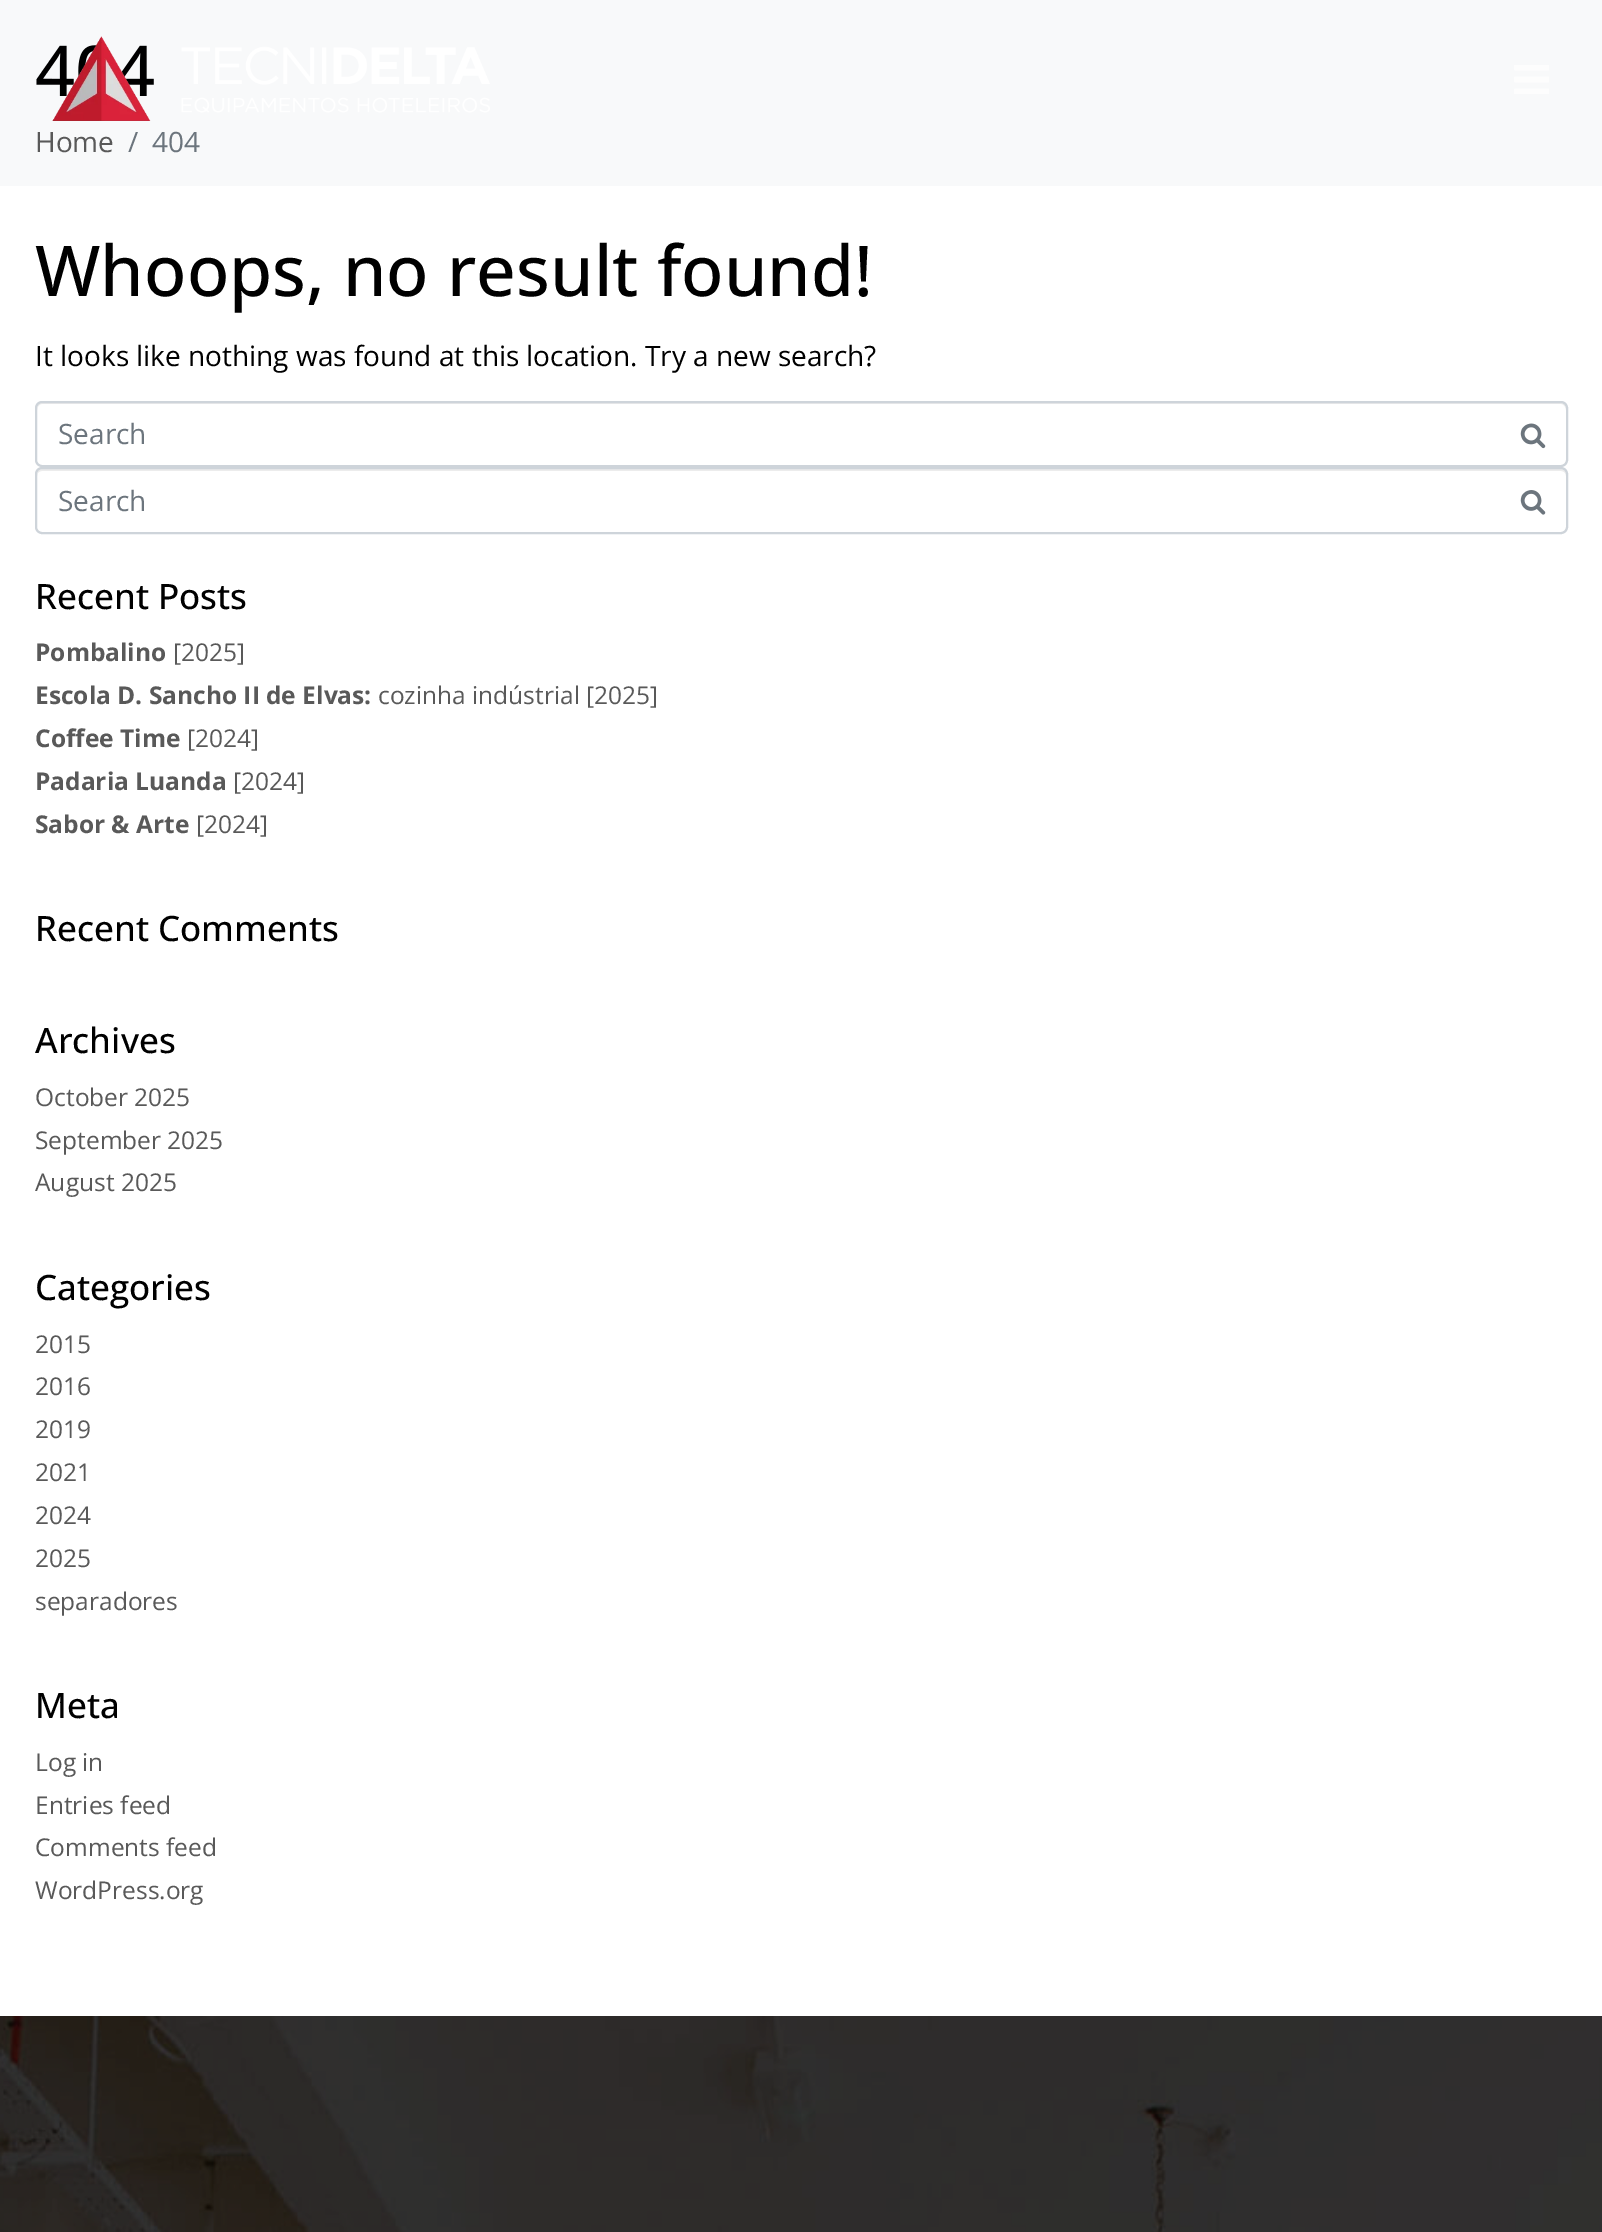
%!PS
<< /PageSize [1602 2232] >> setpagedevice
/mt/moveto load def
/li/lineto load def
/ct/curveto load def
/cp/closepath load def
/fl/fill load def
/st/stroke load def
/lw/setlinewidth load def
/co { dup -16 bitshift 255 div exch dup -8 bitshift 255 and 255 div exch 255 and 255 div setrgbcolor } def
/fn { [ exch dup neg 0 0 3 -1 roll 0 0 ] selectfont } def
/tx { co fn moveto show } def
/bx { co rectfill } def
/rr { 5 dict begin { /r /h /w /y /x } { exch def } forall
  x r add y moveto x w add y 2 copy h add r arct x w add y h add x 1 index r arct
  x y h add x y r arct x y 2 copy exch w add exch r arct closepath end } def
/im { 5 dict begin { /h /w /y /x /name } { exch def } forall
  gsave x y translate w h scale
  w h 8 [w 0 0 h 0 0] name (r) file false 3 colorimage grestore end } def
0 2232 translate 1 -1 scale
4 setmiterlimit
0 0 1602 2232 16#FFFFFF bx
0 0 1602 186 16#F8F9FA bx
(media/2.raw) 1514 65 35 29 im
16#ECECEC co
42 404 mt 1561 404 li 1564 404 1566 407 1566 410 ct 1566 407 1565 403 1561 403 ct 42 403 li 38 403 37 407 37 410 ct 37 407 39 404 42 404 ct cp fl
16#CED4DA co
2 lw
36 402 1531 64 6 rr st
(media/3.raw) 1520 423 26 26 im
16#ECECEC co
42 471 mt 1561 471 li 1564 471 1566 473 1566 476 ct 1566 473 1565 469 1561 469 ct 42 469 li 38 469 37 473 37 476 ct 37 473 39 471 42 471 ct cp fl
16#CED4DA co
36 468 1531 65 6 rr st
(media/4.raw) 1520 490 26 25 im
(media/5.raw) 0 2016 1602 216 im
(404) 35 96 /OpenSans-Medium 70 16#000000 tx
(media/1.raw) 52 36 438 85 im
(Home) 35 152 /OpenSans-Regular 28 16#595959 tx
(/) 128 152 /OpenSans-Regular 28 16#6C757D tx
(404) 152 152 /OpenSans-Regular 28 16#6C757D tx
(Whoops, no result found!) 35 296 /OpenSans-Medium 70 16#000000 tx
(It looks like nothing was found at this location. Try a new search?) 35 366 /OpenSans-Regular 28 16#000000 tx
(Search) 58 444 /OpenSans-Regular 28 16#6C757D tx
(Search) 58 511 /OpenSans-Regular 28 16#6C757D tx
(Recent Posts) 35 609 /OpenSans-Medium 35 16#000000 tx
(Pombalino) 35 661 /OpenSans-Bold 24.5 16#595959 tx
([2025]) 173 661 /OpenSans-Regular 24.5 16#595959 tx
(Escola D. Sancho II de Elvas:) 35 704 /OpenSans-Bold 24.5 16#595959 tx
(cozinha indústrial [2025]) 378 704 /OpenSans-Regular 24.5 16#595959 tx
(Coffee Time) 35 747 /OpenSans-Bold 24.5 16#595959 tx
([2024]) 187 747 /OpenSans-Regular 24.5 16#595959 tx
(Padaria Luanda) 35 790 /OpenSans-Bold 24.5 16#595959 tx
([2024]) 233 790 /OpenSans-Regular 24.5 16#595959 tx
(Sabor & Arte) 35 833 /OpenSans-Bold 24.5 16#595959 tx
([2024]) 196 833 /OpenSans-Regular 24.5 16#595959 tx
(Recent Comments) 35 941 /OpenSans-Medium 35 16#000000 tx
(Archives) 35 1053 /OpenSans-Medium 35 16#000000 tx
(October 2025) 35 1106 /OpenSans-Regular 24.5 16#595959 tx
(September 2025) 35 1149 /OpenSans-Regular 24.5 16#595959 tx
(August 2025) 35 1191 /OpenSans-Regular 24.5 16#595959 tx
(Categories) 35 1300 /OpenSans-Medium 35 16#000000 tx
(2015) 35 1353 /OpenSans-Regular 24.5 16#595959 tx
(2016) 35 1395 /OpenSans-Regular 24.5 16#595959 tx
(2019) 35 1438 /OpenSans-Regular 24.5 16#595959 tx
(2021) 35 1481 /OpenSans-Regular 24.5 16#595959 tx
(2024) 35 1524 /OpenSans-Regular 24.5 16#595959 tx
(2025) 35 1567 /OpenSans-Regular 24.5 16#595959 tx
(separadores) 35 1610 /OpenSans-Regular 24.5 16#595959 tx
(Meta) 35 1718 /OpenSans-Medium 35 16#000000 tx
(Log in) 35 1771 /OpenSans-Regular 24.5 16#595959 tx
(Entries feed) 35 1814 /OpenSans-Regular 24.5 16#595959 tx
(Comments feed) 35 1856 /OpenSans-Regular 24.5 16#595959 tx
(WordPress.org) 35 1899 /OpenSans-Regular 24.5 16#595959 tx
showpage
